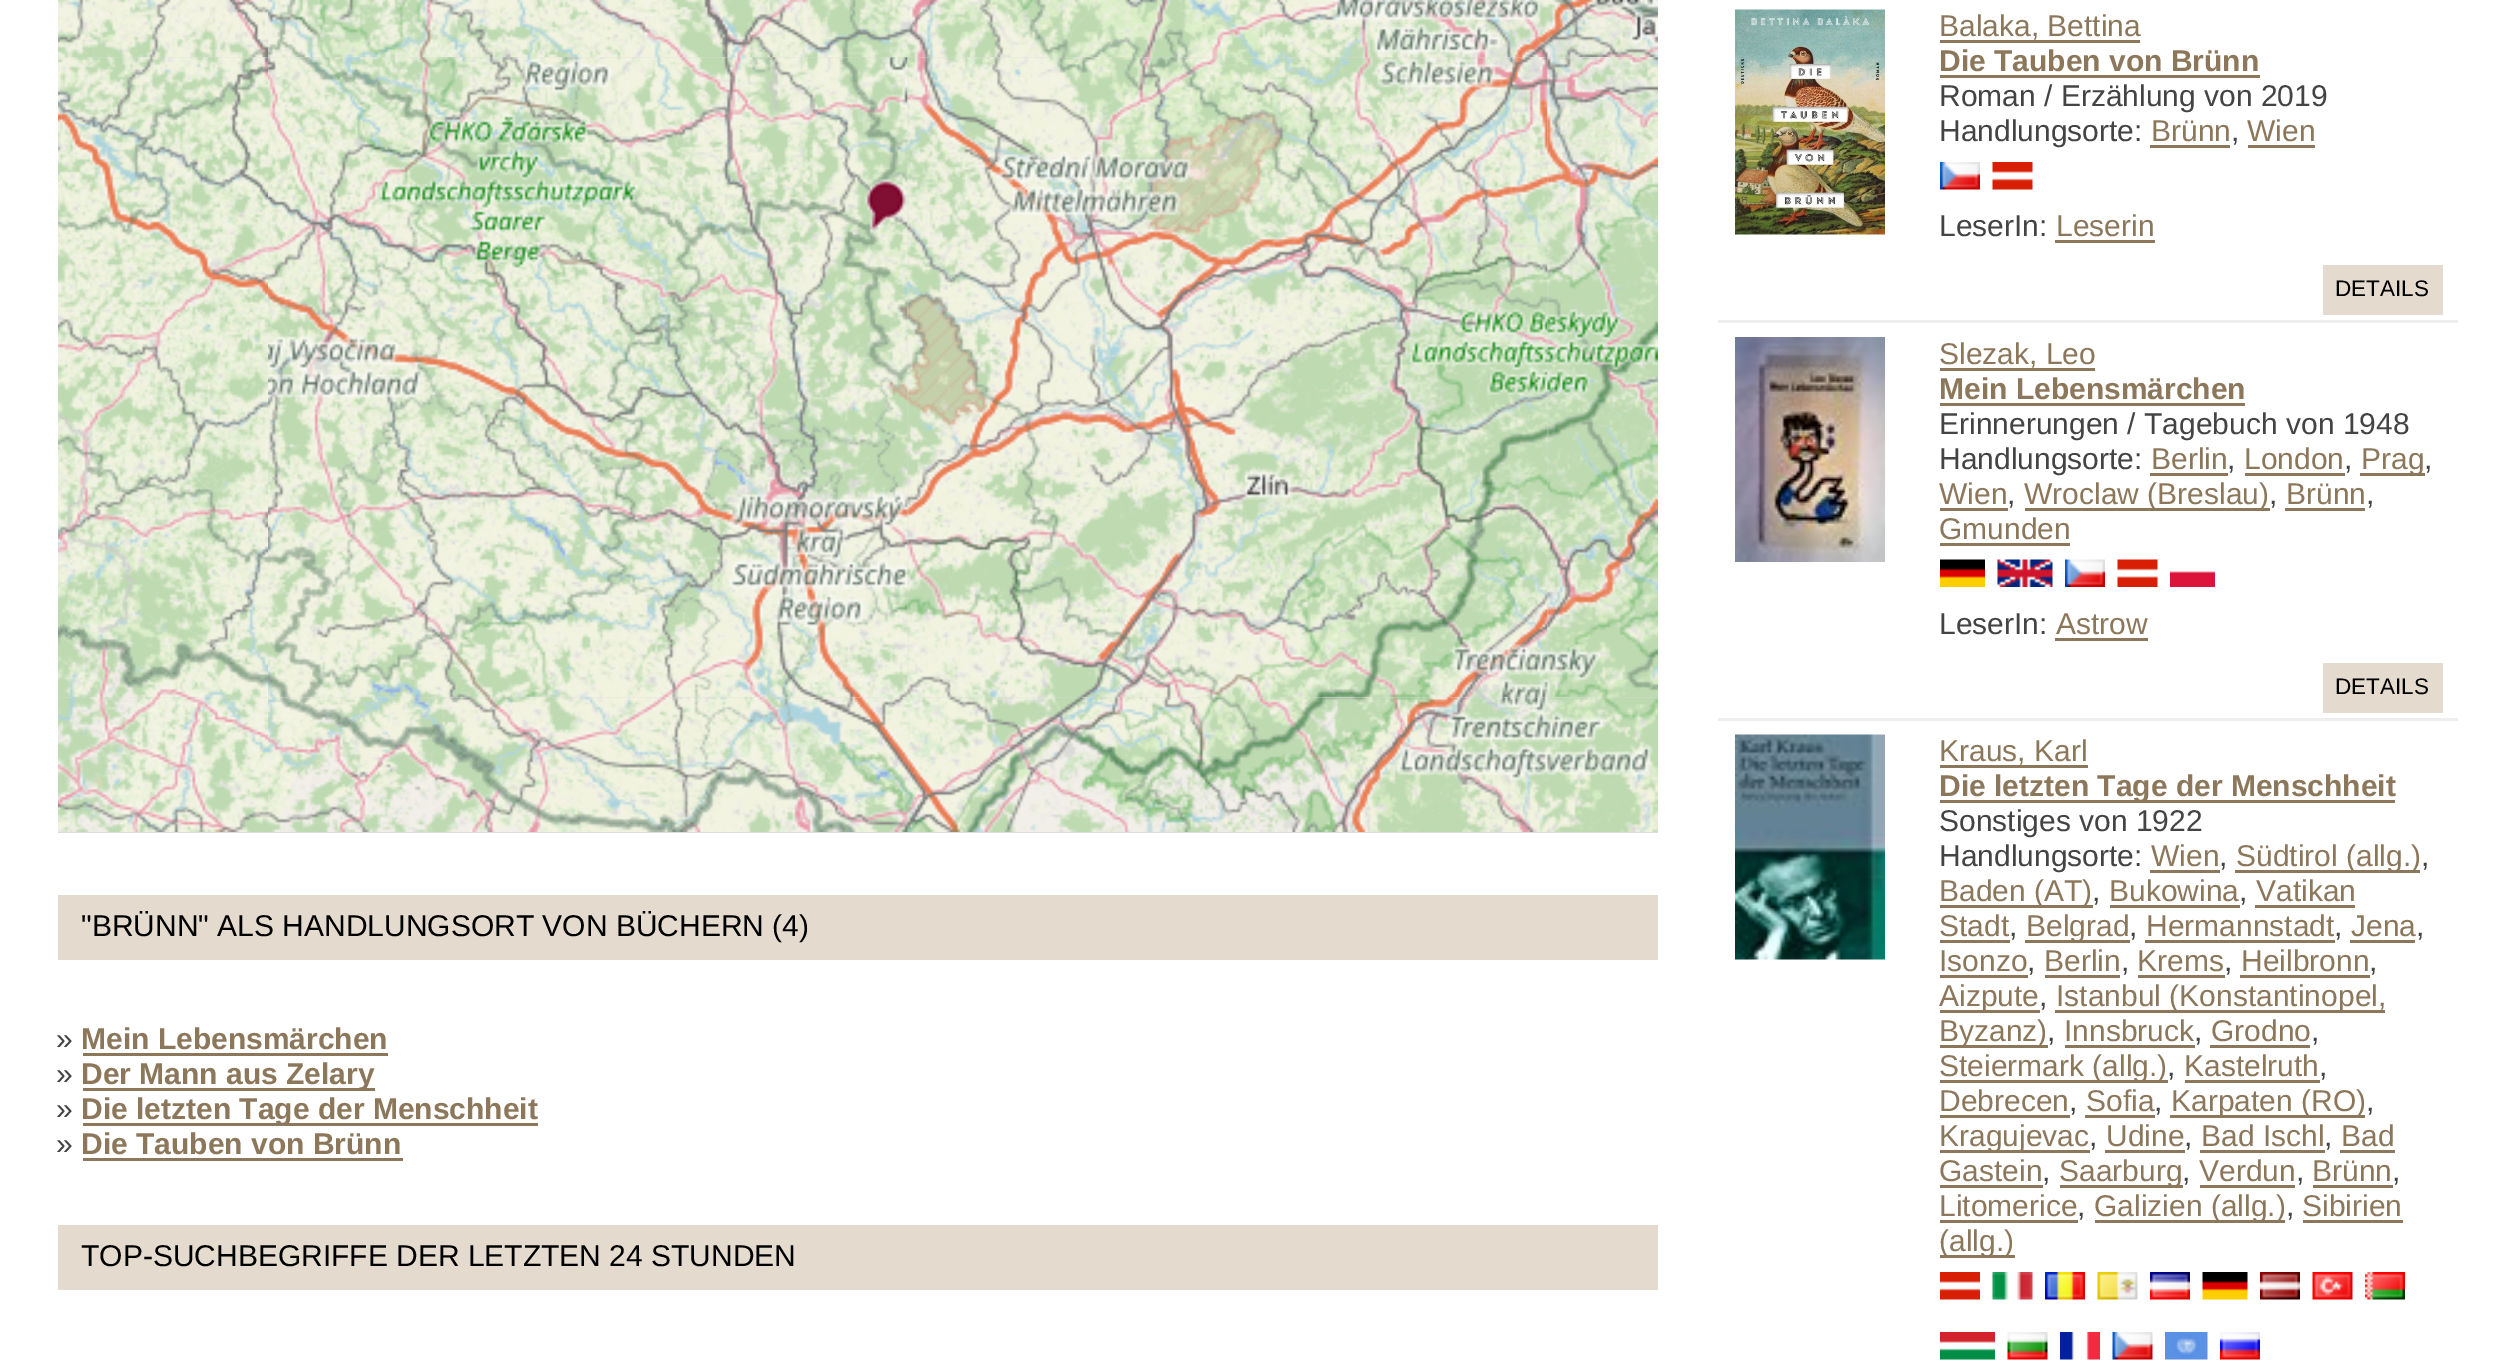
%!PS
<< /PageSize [2511 1371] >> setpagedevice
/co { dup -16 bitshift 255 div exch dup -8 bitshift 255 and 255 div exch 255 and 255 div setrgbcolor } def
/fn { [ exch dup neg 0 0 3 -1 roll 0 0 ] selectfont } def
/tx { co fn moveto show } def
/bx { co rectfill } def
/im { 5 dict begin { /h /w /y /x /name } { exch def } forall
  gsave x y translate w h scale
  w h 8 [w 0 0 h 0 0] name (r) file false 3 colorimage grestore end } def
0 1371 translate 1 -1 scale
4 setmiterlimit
0 0 2511 1371 16#FFFFFF bx
58 0 1600 833 16#DDDDDD bx
(media/6.raw) 266 56 642 641 im
(media/1.raw) 58 0 210 57 im
(media/7.raw) 906 56 642 641 im
(media/2.raw) 268 0 640 57 im
(media/3.raw) 907 0 641 57 im
(media/10.raw) 267 696 641 136 im
(media/11.raw) 906 696 642 136 im
(media/8.raw) 1546 56 112 641 im
(media/4.raw) 1546 0 112 57 im
(media/5.raw) 58 57 210 640 im
(media/9.raw) 58 696 210 136 im
(media/12.raw) 1546 696 112 136 im
(media/13.raw) 864 178 43 58 im
58 895 1600 65 16#E4DBCE bx
83 1053 305 3 16#8C775B bx
83 1088 292 3 16#8C775B bx
83 1123 455 3 16#8C775B bx
83 1158 320 3 16#8C775B bx
58 1225 1600 65 16#E4DBCE bx
(media/14.raw) 1735 9 150 226 im
1718 320 740 3 16#EEEEEE bx
1940 40 200 3 16#8C775B bx
1940 75 320 3 16#8C775B bx
2150 145 80 3 16#8C775B bx
2248 145 67 3 16#8C775B bx
(media/15.raw) 1940 162 40 28 im
(media/16.raw) 1992 162 41 28 im
2055 240 100 3 16#8C775B bx
2323 265 120 50 16#E4DBCE bx
(media/17.raw) 1735 337 150 225 im
1718 718 740 3 16#EEEEEE bx
1940 368 155 3 16#8C775B bx
1940 403 305 3 16#8C775B bx
2150 473 78 3 16#8C775B bx
2245 473 100 3 16#8C775B bx
2360 473 65 3 16#8C775B bx
1940 508 68 3 16#8C775B bx
2025 508 245 3 16#8C775B bx
2285 508 80 3 16#8C775B bx
1940 543 130 3 16#8C775B bx
(media/18.raw) 1940 559 45 28 im
(media/19.raw) 1997 559 56 28 im
(media/20.raw) 2065 559 40 28 im
(media/21.raw) 2117 559 41 28 im
(media/22.raw) 2170 571 45 16 im
2055 638 93 3 16#8C775B bx
2323 663 120 50 16#E4DBCE bx
(media/23.raw) 1735 734 150 226 im
1940 765 148 3 16#8C775B bx
1940 800 455 3 16#8C775B bx
2150 870 70 3 16#8C775B bx
2235 870 185 3 16#8C775B bx
1940 905 153 3 16#8C775B bx
2110 905 130 3 16#8C775B bx
2255 905 100 3 16#8C775B bx
1940 940 70 3 16#8C775B bx
2025 940 105 3 16#8C775B bx
2145 940 190 3 16#8C775B bx
2350 940 65 3 16#8C775B bx
1940 975 88 3 16#8C775B bx
2045 975 75 3 16#8C775B bx
2138 975 87 3 16#8C775B bx
2240 975 130 3 16#8C775B bx
1940 1010 100 3 16#8C775B bx
2055 1010 330 3 16#8C775B bx
1940 1045 108 3 16#8C775B bx
2065 1045 130 3 16#8C775B bx
2210 1045 100 3 16#8C775B bx
1940 1080 228 3 16#8C775B bx
2185 1080 135 3 16#8C775B bx
1940 1115 130 3 16#8C775B bx
2085 1115 70 3 16#8C775B bx
2170 1115 195 3 16#8C775B bx
1940 1150 150 3 16#8C775B bx
2105 1150 80 3 16#8C775B bx
2200 1150 125 3 16#8C775B bx
2340 1150 55 3 16#8C775B bx
1940 1185 103 3 16#8C775B bx
2060 1185 123 3 16#8C775B bx
2200 1185 95 3 16#8C775B bx
2313 1185 80 3 16#8C775B bx
1940 1220 138 3 16#8C775B bx
2095 1220 190 3 16#8C775B bx
2303 1220 100 3 16#8C775B bx
1940 1255 75 3 16#8C775B bx
(media/24.raw) 1940 1272 40 28 im
(media/25.raw) 1992 1272 41 28 im
(media/26.raw) 2045 1272 40 28 im
(media/27.raw) 2097 1272 41 28 im
(media/28.raw) 2150 1272 40 28 im
(media/29.raw) 2202 1272 46 28 im
(media/30.raw) 2260 1272 40 28 im
(media/31.raw) 2312 1272 41 28 im
(media/32.raw) 2365 1272 40 28 im
(media/33.raw) 1940 1332 55 28 im
(media/34.raw) 2007 1332 41 28 im
(media/35.raw) 2060 1332 40 28 im
(media/36.raw) 2112 1332 41 28 im
(media/37.raw) 2165 1332 43 28 im
(media/38.raw) 2220 1332 40 28 im
("BRÜNN" ALS HANDLUNGSORT VON BÜCHERN \(4\)) 81 936 /LiberationSans-Regular 30 16#000000 tx
(») 56 1049 /LiberationSans-Regular 30 16#444444 tx
(Mein Lebensmärchen) 81 1049 /LiberationSans-Bold 30 16#8C775B tx
(») 56 1084 /LiberationSans-Regular 30 16#444444 tx
(Der Mann aus Zelary) 81 1084 /LiberationSans-Bold 30 16#8C775B tx
(») 56 1119 /LiberationSans-Regular 30 16#444444 tx
(Die letzten Tage der Menschheit) 81 1119 /LiberationSans-Bold 30 16#8C775B tx
(») 56 1154 /LiberationSans-Regular 30 16#444444 tx
(Die Tauben von Brünn) 81 1154 /LiberationSans-Bold 30 16#8C775B tx
(TOP-SUCHBEGRIFFE DER LETZTEN 24 STUNDEN) 81 1266 /LiberationSans-Regular 30 16#000000 tx
(Balaka, Bettina) 1939 36 /LiberationSans-Regular 30 16#8C775B tx
(Die Tauben von Brünn) 1939 71 /LiberationSans-Bold 30 16#8C775B tx
(Roman / Erzählung von 2019) 1939 106 /LiberationSans-Regular 30 16#444444 tx
(Handlungsorte:) 1939 141 /LiberationSans-Regular 30 16#444444 tx
(Brünn) 2151 141 /LiberationSans-Regular 30 16#8C775B tx
(,) 2231 141 /LiberationSans-Regular 30 16#444444 tx
(Wien) 2247 141 /LiberationSans-Regular 30 16#8C775B tx
(LeserIn:) 1939 236 /LiberationSans-Regular 30 16#444444 tx
(Leserin) 2056 236 /LiberationSans-Regular 30 16#8C775B tx
(DETAILS) 2335 296 /LiberationSans-Regular 22.5 16#000000 tx
(Slezak, Leo) 1939 364 /LiberationSans-Regular 30 16#8C775B tx
(Mein Lebensmärchen) 1939 399 /LiberationSans-Bold 30 16#8C775B tx
(Erinnerungen / Tagebuch von 1948) 1939 434 /LiberationSans-Regular 30 16#444444 tx
(Handlungsorte:) 1939 469 /LiberationSans-Regular 30 16#444444 tx
(Berlin) 2151 469 /LiberationSans-Regular 30 16#8C775B tx
(,) 2227 469 /LiberationSans-Regular 30 16#444444 tx
(London) 2244 469 /LiberationSans-Regular 30 16#8C775B tx
(,) 2344 469 /LiberationSans-Regular 30 16#444444 tx
(Prag) 2361 469 /LiberationSans-Regular 30 16#8C775B tx
(,) 2424 469 /LiberationSans-Regular 30 16#444444 tx
(Wien) 1939 504 /LiberationSans-Regular 30 16#8C775B tx
(,) 2007 504 /LiberationSans-Regular 30 16#444444 tx
(Wroclaw \(Breslau\)) 2024 504 /LiberationSans-Regular 30 16#8C775B tx
(,) 2269 504 /LiberationSans-Regular 30 16#444444 tx
(Brünn) 2286 504 /LiberationSans-Regular 30 16#8C775B tx
(,) 2366 504 /LiberationSans-Regular 30 16#444444 tx
(Gmunden) 1939 539 /LiberationSans-Regular 30 16#8C775B tx
(LeserIn:) 1939 634 /LiberationSans-Regular 30 16#444444 tx
(Astrow) 2056 634 /LiberationSans-Regular 30 16#8C775B tx
(DETAILS) 2335 694 /LiberationSans-Regular 22.5 16#000000 tx
(Kraus, Karl) 1939 761 /LiberationSans-Regular 30 16#8C775B tx
(Die letzten Tage der Menschheit) 1939 796 /LiberationSans-Bold 30 16#8C775B tx
(Sonstiges von 1922) 1939 831 /LiberationSans-Regular 30 16#444444 tx
(Handlungsorte:) 1939 866 /LiberationSans-Regular 30 16#444444 tx
(Wien) 2151 866 /LiberationSans-Regular 30 16#8C775B tx
(,) 2219 866 /LiberationSans-Regular 30 16#444444 tx
(Südtirol \(allg.\)) 2236 866 /LiberationSans-Regular 30 16#8C775B tx
(,) 2421 866 /LiberationSans-Regular 30 16#444444 tx
(Baden \(AT\)) 1939 901 /LiberationSans-Regular 30 16#8C775B tx
(,) 2092 901 /LiberationSans-Regular 30 16#444444 tx
(Bukowina) 2109 901 /LiberationSans-Regular 30 16#8C775B tx
(,) 2239 901 /LiberationSans-Regular 30 16#444444 tx
(Vatikan) 2256 901 /LiberationSans-Regular 30 16#8C775B tx
(Stadt) 1939 936 /LiberationSans-Regular 30 16#8C775B tx
(,) 2009 936 /LiberationSans-Regular 30 16#444444 tx
(Belgrad) 2026 936 /LiberationSans-Regular 30 16#8C775B tx
(,) 2129 936 /LiberationSans-Regular 30 16#444444 tx
(Hermannstadt) 2146 936 /LiberationSans-Regular 30 16#8C775B tx
(,) 2334 936 /LiberationSans-Regular 30 16#444444 tx
(Jena) 2351 936 /LiberationSans-Regular 30 16#8C775B tx
(,) 2416 936 /LiberationSans-Regular 30 16#444444 tx
(Isonzo) 1939 971 /LiberationSans-Regular 30 16#8C775B tx
(,) 2027 971 /LiberationSans-Regular 30 16#444444 tx
(Berlin) 2044 971 /LiberationSans-Regular 30 16#8C775B tx
(,) 2121 971 /LiberationSans-Regular 30 16#444444 tx
(Krems) 2137 971 /LiberationSans-Regular 30 16#8C775B tx
(,) 2224 971 /LiberationSans-Regular 30 16#444444 tx
(Heilbronn) 2241 971 /LiberationSans-Regular 30 16#8C775B tx
(,) 2369 971 /LiberationSans-Regular 30 16#444444 tx
(Aizpute) 1939 1006 /LiberationSans-Regular 30 16#8C775B tx
(,) 2039 1006 /LiberationSans-Regular 30 16#444444 tx
(Istanbul \(Konstantinopel,) 2056 1006 /LiberationSans-Regular 30 16#8C775B tx
(Byzanz\)) 1939 1041 /LiberationSans-Regular 30 16#8C775B tx
(,) 2047 1041 /LiberationSans-Regular 30 16#444444 tx
(Innsbruck) 2064 1041 /LiberationSans-Regular 30 16#8C775B tx
(,) 2194 1041 /LiberationSans-Regular 30 16#444444 tx
(Grodno) 2211 1041 /LiberationSans-Regular 30 16#8C775B tx
(,) 2311 1041 /LiberationSans-Regular 30 16#444444 tx
(Steiermark \(allg.\)) 1939 1076 /LiberationSans-Regular 30 16#8C775B tx
(,) 2167 1076 /LiberationSans-Regular 30 16#444444 tx
(Kastelruth) 2184 1076 /LiberationSans-Regular 30 16#8C775B tx
(,) 2319 1076 /LiberationSans-Regular 30 16#444444 tx
(Debrecen) 1939 1111 /LiberationSans-Regular 30 16#8C775B tx
(,) 2069 1111 /LiberationSans-Regular 30 16#444444 tx
(Sofia) 2086 1111 /LiberationSans-Regular 30 16#8C775B tx
(,) 2154 1111 /LiberationSans-Regular 30 16#444444 tx
(Karpaten \(RO\)) 2171 1111 /LiberationSans-Regular 30 16#8C775B tx
(,) 2366 1111 /LiberationSans-Regular 30 16#444444 tx
(Kragujevac) 1939 1146 /LiberationSans-Regular 30 16#8C775B tx
(,) 2089 1146 /LiberationSans-Regular 30 16#444444 tx
(Udine) 2106 1146 /LiberationSans-Regular 30 16#8C775B tx
(,) 2184 1146 /LiberationSans-Regular 30 16#444444 tx
(Bad Ischl) 2201 1146 /LiberationSans-Regular 30 16#8C775B tx
(,) 2324 1146 /LiberationSans-Regular 30 16#444444 tx
(Bad) 2341 1146 /LiberationSans-Regular 30 16#8C775B tx
(Gastein) 1939 1181 /LiberationSans-Regular 30 16#8C775B tx
(,) 2042 1181 /LiberationSans-Regular 30 16#444444 tx
(Saarburg) 2059 1181 /LiberationSans-Regular 30 16#8C775B tx
(,) 2182 1181 /LiberationSans-Regular 30 16#444444 tx
(Verdun) 2199 1181 /LiberationSans-Regular 30 16#8C775B tx
(,) 2296 1181 /LiberationSans-Regular 30 16#444444 tx
(Brünn) 2312 1181 /LiberationSans-Regular 30 16#8C775B tx
(,) 2392 1181 /LiberationSans-Regular 30 16#444444 tx
(Litomerice) 1939 1216 /LiberationSans-Regular 30 16#8C775B tx
(,) 2077 1216 /LiberationSans-Regular 30 16#444444 tx
(Galizien \(allg.\)) 2094 1216 /LiberationSans-Regular 30 16#8C775B tx
(,) 2286 1216 /LiberationSans-Regular 30 16#444444 tx
(Sibirien) 2302 1216 /LiberationSans-Regular 30 16#8C775B tx
(\(allg.\)) 1939 1251 /LiberationSans-Regular 30 16#8C775B tx
showpage
